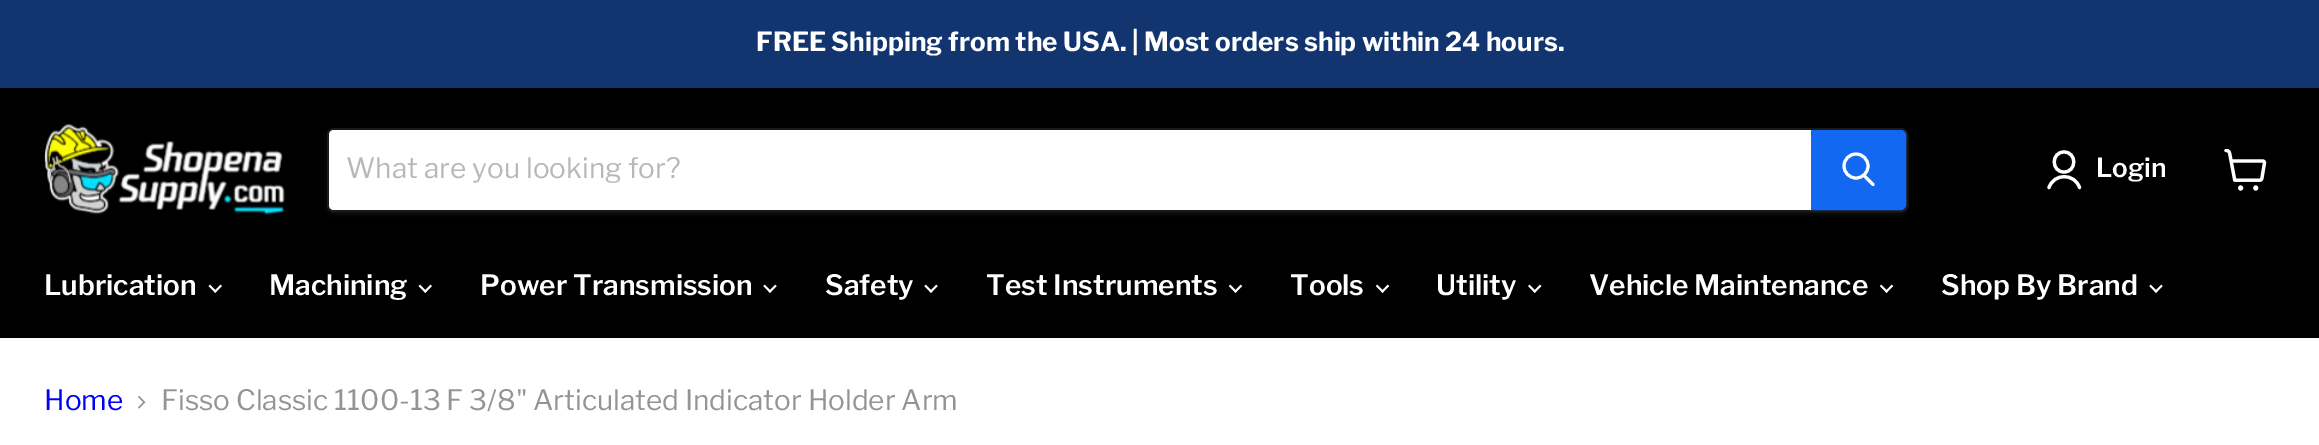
%!PS
<< /PageSize [2319 445] /PageUsesTransparency true >> setpagedevice
/mt/moveto load def
/li/lineto load def
/ct/curveto load def
/cp/closepath load def
/fl/fill load def
/st/stroke load def
/gs/gsave load def
/gr/grestore load def
/lw/setlinewidth load def
/co { dup -16 bitshift 255 div exch dup -8 bitshift 255 and 255 div exch 255 and 255 div setrgbcolor } def
/fn { [ exch dup neg 0 0 3 -1 roll 0 0 ] selectfont } def
/tx { co fn moveto show } def
/bx { co rectfill } def
/al { dup .setfillconstantalpha .setstrokeconstantalpha } def
/ci { newpath 0 360 arc closepath } def
/rr { 5 dict begin { /r /h /w /y /x } { exch def } forall
  x r add y moveto x w add y 2 copy h add r arct x w add y h add x 1 index r arct
  x y h add x y r arct x y 2 copy exch w add exch r arct closepath end } def
/sh { 12 dict begin { /a /b /q /h /w /y /x } { exch def } forall gsave /was 0 def
  9 -2 -9 { dup b mul 4 div /e exch def 1 sub .425 mul 2.718 exch exp 1 add a .99 .min exch div /now exch def
    1 1 now sub 1 was sub div sub al /was now def
    w h .min e 2 mul add 0 gt { x e sub y e sub w e 2 mul add h e 2 mul add
      q e add b .6 mul add w h .min 2 div e add .min 0 .max rr fill } if } for grestore end } def
/im { 5 dict begin { /h /w /y /x /name } { exch def } forall
  gsave x y translate w h scale
  w h 8 [w 0 0 h 0 0] name (r) file false 3 colorimage grestore end } def
0 .pushpdf14devicefilter
0 445 translate 1 -1 scale
4 setmiterlimit
0 0 2319 445 16#FFFFFF bx
0 0 2319 88 16#123570 bx
0 88 2319 250 16#000000 bx
(media/1.raw) 44 123 241 92 im
gs
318 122 mt 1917 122 li 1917 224 li 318 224 li cp 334 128 mt 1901 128 li 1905 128 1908 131 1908 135 ct 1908 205 li 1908 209 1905 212 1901 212 ct 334 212 li 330 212 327 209 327 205 ct 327 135 li 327 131 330 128 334 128 ct cp eoclip newpath
16#808080 co
327 131 1581 84 7 2.5 .11 sh
gr
0.2 al
16#808080 co
2 lw
328 129 1579 82 6 rr st
1 al
16#FFFFFF co
334 130 mt 1811 130 li 1811 210 li 334 210 li 331 210 329 208 329 205 ct 329 135 li 329 132 331 130 334 130 ct cp fl
16#1268F1 co
1812 131 mt 1901 131 li 1903 131 1905 133 1905 135 ct 1905 205 li 1905 207 1903 209 1901 209 ct 1812 209 li cp gs fl gr
st
16#FFFFFF co
3 lw
1 setlinecap
1873 184.5 mt 1864.5 176 li st
0 setlinecap
1856 166 12 ci st
3.2 lw
1 setlinecap
1 setlinejoin
2064 172 mt 2077 172 2077 152 2064 152 ct 2051 152 2051 172 2064 172 ct cp 2079.5 187.5 mt 2074.5 173 2054 173 2049 187.5 ct st
(media/2.raw) 2224 149 43 42 im
(media/3.raw) 208 284 14 9 im
(media/3.raw) 418 284 14 9 im
(media/4.raw) 763 284 14 9 im
(media/4.raw) 924 284 14 9 im
(media/5.raw) 1229 284 14 9 im
(media/5.raw) 1376 284 14 9 im
(media/6.raw) 1528 284 14 9 im
(media/5.raw) 1880 284 14 9 im
(media/4.raw) 2149 284 14 9 im
(media/7.raw) 138 395 8 14 im
(FREE Shipping from the USA. | Most orders ship within 24 hours.) 756 51 /LibreFranklin-Bold 26.25 16#FFFFFF tx
(What are you looking for?) 346 178 /LibreFranklin-Regular 28 16#B8B8B8 tx
(Login) 2096 177 /LibreFranklin-SemiBold 26.25 16#FFFFFF tx
(Lubrication) 44 295 /LibreFranklin-SemiBold 28 16#FFFFFF tx
(Machining) 269 295 /LibreFranklin-SemiBold 28 16#FFFFFF tx
(Power Transmission) 480 295 /LibreFranklin-SemiBold 28 16#FFFFFF tx
(Safety) 825 295 /LibreFranklin-SemiBold 28 16#FFFFFF tx
(Test Instruments) 986 295 /LibreFranklin-SemiBold 28 16#FFFFFF tx
(Tools) 1290 295 /LibreFranklin-SemiBold 28 16#FFFFFF tx
(Utility) 1436 295 /LibreFranklin-SemiBold 28 16#FFFFFF tx
(Vehicle Maintenance) 1589 295 /LibreFranklin-SemiBold 28 16#FFFFFF tx
(Shop By Brand) 1941 295 /LibreFranklin-SemiBold 28 16#FFFFFF tx
(Home) 44 410 /LibreFranklin-Regular 28 16#0000FF tx
(Fisso Classic 1100-13 F 3/8" Articulated Indicator Holder Arm) 161 410 /LibreFranklin-Regular 28 16#949494 tx
.poppdf14devicefilter showpage
